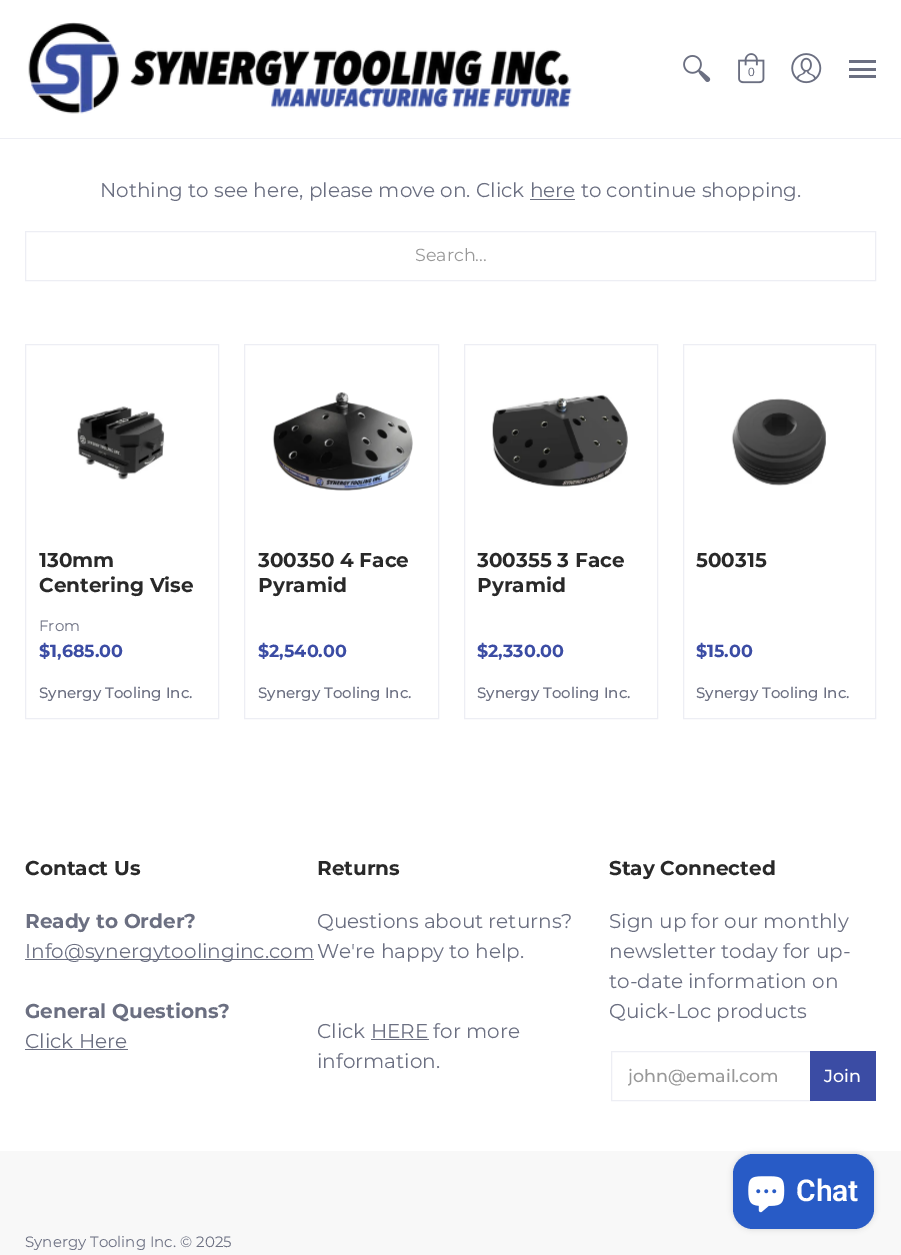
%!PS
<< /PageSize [901 1255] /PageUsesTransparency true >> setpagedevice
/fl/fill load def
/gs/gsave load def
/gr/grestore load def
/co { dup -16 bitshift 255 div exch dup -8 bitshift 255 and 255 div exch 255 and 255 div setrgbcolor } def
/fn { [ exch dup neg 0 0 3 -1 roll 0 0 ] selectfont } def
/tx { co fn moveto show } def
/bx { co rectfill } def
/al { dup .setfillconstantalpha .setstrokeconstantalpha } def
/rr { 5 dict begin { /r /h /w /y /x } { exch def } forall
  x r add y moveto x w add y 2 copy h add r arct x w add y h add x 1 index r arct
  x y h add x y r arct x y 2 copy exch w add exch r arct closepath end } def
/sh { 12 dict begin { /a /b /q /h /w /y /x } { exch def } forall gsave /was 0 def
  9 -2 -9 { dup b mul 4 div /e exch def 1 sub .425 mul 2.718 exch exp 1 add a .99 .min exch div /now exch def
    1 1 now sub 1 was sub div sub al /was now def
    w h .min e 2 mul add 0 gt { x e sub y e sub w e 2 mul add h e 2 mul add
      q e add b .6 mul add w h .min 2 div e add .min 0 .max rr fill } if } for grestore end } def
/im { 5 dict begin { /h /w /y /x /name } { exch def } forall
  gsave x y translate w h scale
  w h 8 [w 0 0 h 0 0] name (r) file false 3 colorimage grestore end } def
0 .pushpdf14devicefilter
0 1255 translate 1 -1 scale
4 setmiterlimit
0 0 901 1255 16#FFFFFF bx
0 138 901 1 16#EDEEF4 bx
(media/1.raw) 28 22 544 92 im
(media/2.raw) 683 55 28 27 im
(media/3.raw) 738 53 27 31 im
(media/4.raw) 791 53 31 31 im
849 60 27 3 16#6B6F81 bx
849 75 27 3 16#6B6F81 bx
849 68 27 3 16#6B6F81 bx
530 199 45 1 16#6B6F81 bx
16#EDEEF4 co
25.5 231.5 850 49 rectstroke
25.5 344.5 193 374 rectstroke
(media/5.raw) 77 406 88 74 im
244.5 344.5 194 374 rectstroke
(media/6.raw) 272 392 141 99 im
464.5 344.5 193 374 rectstroke
(media/7.raw) 492 394 136 93 im
683.5 344.5 192 374 rectstroke
(media/8.raw) 731 398 96 88 im
25 959 289 1 16#6B6F81 bx
25 1049 103 1 16#6B6F81 bx
371 1039 58 1 16#6B6F81 bx
16#EDEEF4 co
611.5 1051.5 201 49 rectstroke
810 1051 66 50 16#3B4CA4 bx
0 1151 901 104 16#F8F8F8 bx
16#000000 co
733 1154 141 75 20 3 .15 sh
16#285BC6 co
733 1154 141 75 20 rr fl
(media/9.raw) 748 1176 37 37 im
(0) 748 76 /LiberationSans-Regular 12 16#6B6F81 tx
(Nothing to see here, please move on. Click here to continue shopping.) 100 197 /Montserrat-Regular 20 16#6B6F81 tx
(Search...) 415 261 /Montserrat-Regular 17.5 16#989898 tx
(130mm) 39 567 /Montserrat-Bold 20 16#292929 tx
(Centering Vise) 39 592 /Montserrat-Bold 20 16#292929 tx
(From) 39 631 /Montserrat-Regular 15 16#6B6F81 tx
($1,685.00) 39 657 /Montserrat-Bold 17.5 16#3B4CA4 tx
(Synergy Tooling Inc.) 39 698 /Montserrat-Medium 15 16#6B6F81 tx
(300350 4 Face) 258 567 /Montserrat-Bold 20 16#292929 tx
(Pyramid) 258 592 /Montserrat-Bold 20 16#292929 tx
($2,540.00) 258 657 /Montserrat-Bold 17.5 16#3B4CA4 tx
(Synergy Tooling Inc.) 258 698 /Montserrat-Medium 15 16#6B6F81 tx
(300355 3 Face) 477 567 /Montserrat-Bold 20 16#292929 tx
(Pyramid) 477 592 /Montserrat-Bold 20 16#292929 tx
($2,330.00) 477 657 /Montserrat-Bold 17.5 16#3B4CA4 tx
(Synergy Tooling Inc.) 477 698 /Montserrat-Medium 15 16#6B6F81 tx
(500315) 696 567 /Montserrat-Bold 20 16#292929 tx
($15.00) 696 657 /Montserrat-Bold 17.5 16#3B4CA4 tx
(Synergy Tooling Inc.) 696 698 /Montserrat-Medium 15 16#6B6F81 tx
(Contact Us) 25 875 /Montserrat-Bold 20 16#292929 tx
(Ready to Order?) 25 928 /Montserrat-Bold 20 16#6B6F81 tx
(Info@synergytoolinginc.com) 25 958 /Montserrat-Regular 20 16#6B6F81 tx
(General Questions?) 25 1018 /Montserrat-Bold 20 16#6B6F81 tx
(Click Here) 25 1048 /Montserrat-Regular 20 16#6B6F81 tx
(Returns) 317 875 /Montserrat-Bold 20 16#292929 tx
(Questions about returns?) 317 928 /Montserrat-Regular 20 16#6B6F81 tx
(We're happy to help.) 317 958 /Montserrat-Regular 20 16#6B6F81 tx
(Click HERE for more) 317 1038 /Montserrat-Regular 20 16#6B6F81 tx
(information.) 317 1068 /Montserrat-Regular 20 16#6B6F81 tx
(Stay Connected) 609 875 /Montserrat-Bold 20 16#292929 tx
(Sign up for our monthly) 609 928 /Montserrat-Regular 20 16#6B6F81 tx
(newsletter today for up-) 609 958 /Montserrat-Regular 20 16#6B6F81 tx
(to-date information on) 609 988 /Montserrat-Regular 20 16#6B6F81 tx
(Quick-Loc products) 609 1018 /Montserrat-Regular 20 16#6B6F81 tx
gs
628 1065 168 23 rectclip
(john@email.com) 628 1082 /Montserrat-Medium 17.5 16#989898 tx
gr
(Join) 824 1082 /Montserrat-Medium 17.5 16#FFFFFF tx
(Synergy Tooling Inc. © 2025) 25 1247 /Montserrat-Regular 15 16#6B6F81 tx
(Chat) 796 1201 /Roboto-SemiBold 30 16#FFFFFF tx
.poppdf14devicefilter showpage
